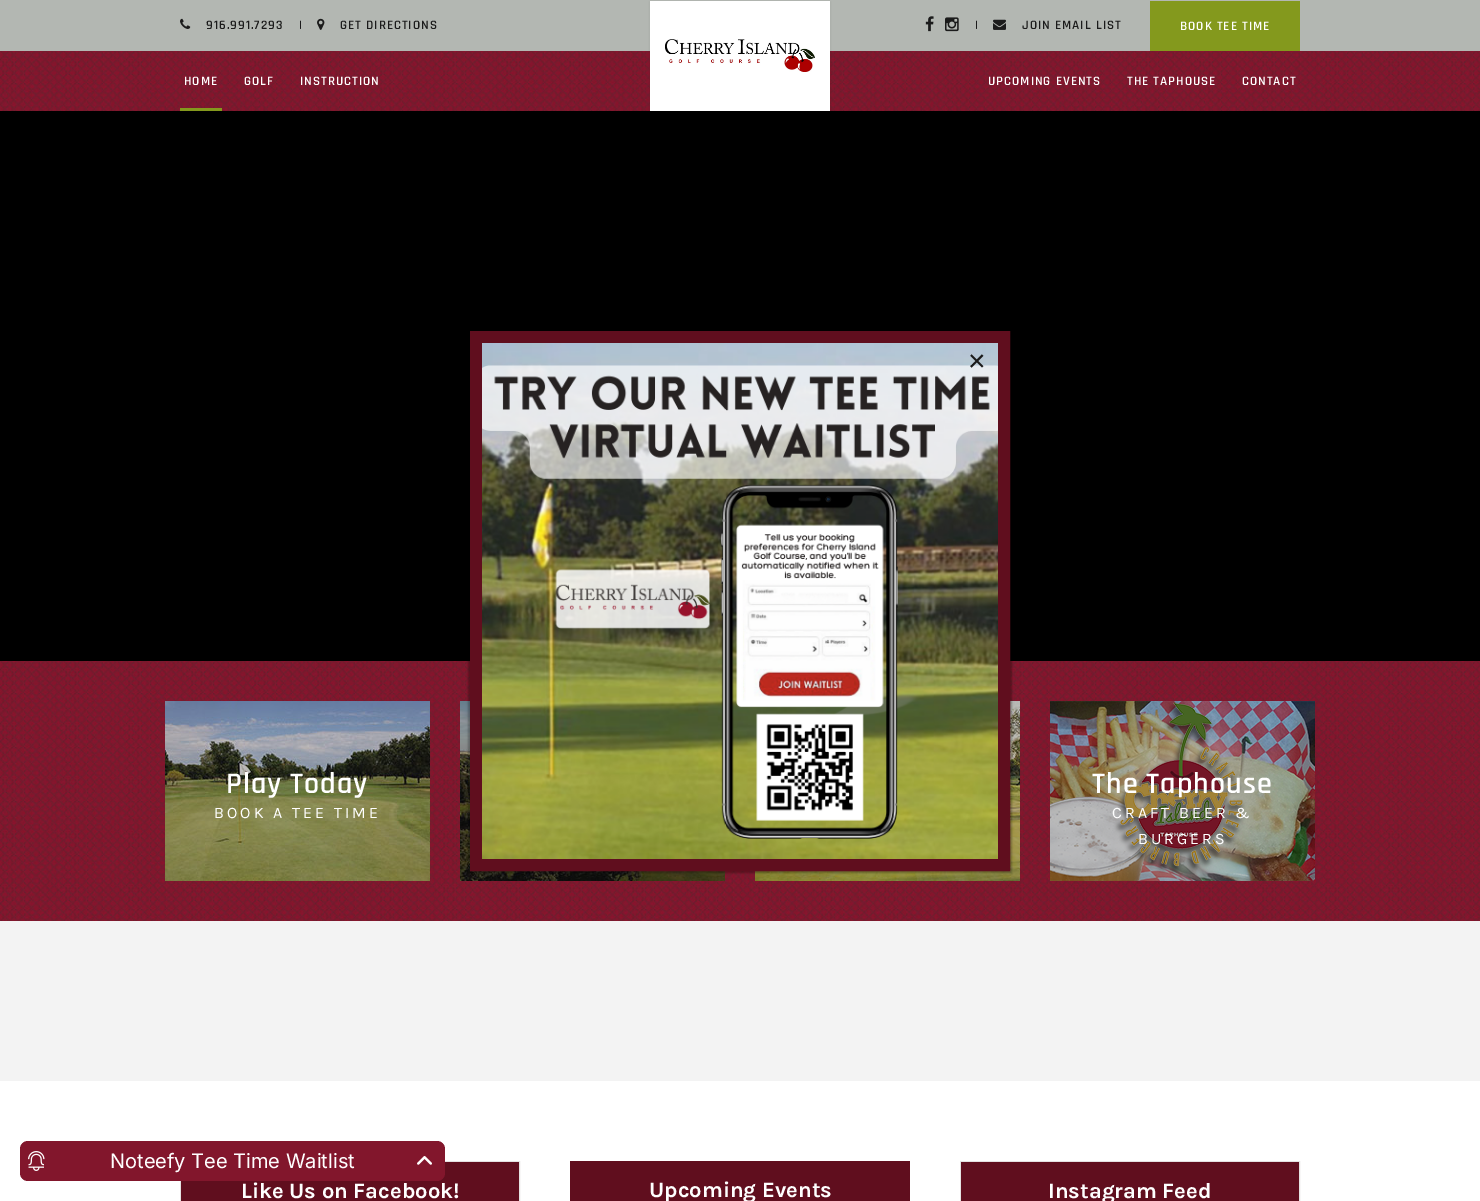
%!PS
<< /PageSize [1480 1201] /PageUsesTransparency true >> setpagedevice
/mt/moveto load def
/fl/fill load def
/lw/setlinewidth load def
/co { dup -16 bitshift 255 div exch dup -8 bitshift 255 and 255 div exch 255 and 255 div setrgbcolor } def
/fn { [ exch dup neg 0 0 3 -1 roll 0 0 ] selectfont } def
/tx { co fn moveto show } def
/bx { co rectfill } def
/al { dup .setfillconstantalpha .setstrokeconstantalpha } def
/rr { 5 dict begin { /r /h /w /y /x } { exch def } forall
  x r add y moveto x w add y 2 copy h add r arct x w add y h add x 1 index r arct
  x y h add x y r arct x y 2 copy exch w add exch r arct closepath end } def
/sh { 12 dict begin { /a /b /q /h /w /y /x } { exch def } forall gsave /was 0 def
  9 -2 -9 { dup b mul 4 div /e exch def 1 sub .425 mul 2.718 exch exp 1 add a .99 .min exch div /now exch def
    1 1 now sub 1 was sub div sub al /was now def
    w h .min e 2 mul add 0 gt { x e sub y e sub w e 2 mul add h e 2 mul add
      q e add b .6 mul add w h .min 2 div e add .min 0 .max rr fill } if } for grestore end } def
/im { 5 dict begin { /h /w /y /x /name } { exch def } forall
  gsave x y translate w h scale
  w h 8 [w 0 0 h 0 0] name (r) file false 3 colorimage grestore end } def
0 .pushpdf14devicefilter
0 1201 translate 1 -1 scale
4 setmiterlimit
0 0 1480 1201 16#FFFFFF bx
0 0 1480 51 16#B3B7B2 bx
(media/1.raw) 180 18 11 11 im
(media/2.raw) 317 18 8 12 im
(media/3.raw) 925 16 9 16 im
(media/4.raw) 945 17 14 15 im
(media/5.raw) 993 19 13 11 im
1150 1 150 50 16#84991D bx
(media/6.raw) 0 51 1480 60 im
180 108 42 3 16#84991D bx
0 111 1480 550 16#000000 bx
650 2 180 110 0 1 .1 sh
650 1 180 110 16#FFFFFF bx
(media/7.raw) 665 39 150 33 im
(media/8.raw) 0 661 1480 260 im
(media/9.raw) 165 701 265 180 im
(media/10.raw) 460 701 265 180 im
(media/11.raw) 755 701 265 180 im
(media/12.raw) 1050 701 265 180 im
0 921 1480 160 16#F3F3F3 bx
16#E5E2E2 co
180.5 1161.5 339 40 rectstroke
181 1162 338 39 16#600E1E bx
570 1161 340 40 16#600E1E bx
16#E5E2E2 co
960.5 1161.5 339 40 rectstroke
961 1162 338 39 16#600E1E bx
16#000001 co
468 329 544 544 0 1 .3 sh
16#600E1E co
12 lw
476 337 528 528 rectstroke
(media/13.raw) 482 343 516 516 im
16#82162C co
20 1141 425 40 8 rr fl
(media/14.raw) 28 1151 17 20 im
(media/15.raw) 417 1156 15 9 im
/Rajdhani-SemiBold 13 fn
16#1B1B1B co
206 29 mt 1 0 (916.991.7293) ashow
(|) 299 29 /Rajdhani-SemiBold 13 16#1B1B1B tx
340 29 mt 1 0 (GET DIRECTIONS) ashow
(|) 975 29 /Rajdhani-SemiBold 13 16#1B1B1B tx
1022 29 mt 1 0 (JOIN EMAIL LIST) ashow
16#FFFFFF co
1180 30 mt 1 0 (BOOK TEE TIME) ashow
184 85 mt 1 0 (HOME) ashow
244 85 mt 1 0 (GOLF) ashow
300 85 mt 1 0 (INSTRUCTION) ashow
988 85 mt 1 0 (UPCOMING EVENTS) ashow
1127 85 mt 1 0 (THE TAPHOUSE) ashow
1242 85 mt 1 0 (CONTACT) ashow
/Rajdhani-SemiBold 30 fn
226 793 mt 1 0 (Play Today) ashow
/Karla-Regular 16 fn
214 818 mt 3 0 (BOOK A TEE TIME) ashow
/Rajdhani-SemiBold 30 fn
1092 793 mt 1 0 (The Taphouse) ashow
/Karla-Regular 16 fn
1112 818 mt 3 0 (CRAFT BEER &) ashow
1138 844 mt 3 0 (BURGERS) ashow
(Like Us on Facebook!) 241 1198 /Karla-Bold 22 16#FFFFFF tx
(Upcoming Events) 649 1197 /Karla-Bold 22 16#FFFFFF tx
(Instagram Feed) 1048 1198 /Karla-Bold 22 16#FFFFFF tx
(×) 968 371 /LiberationSans-Regular 30 16#1B1B1B tx
(Noteefy Tee Time Waitlist) 110 1168 /Inter-Regular 20 16#FFFFFF tx
.poppdf14devicefilter showpage
